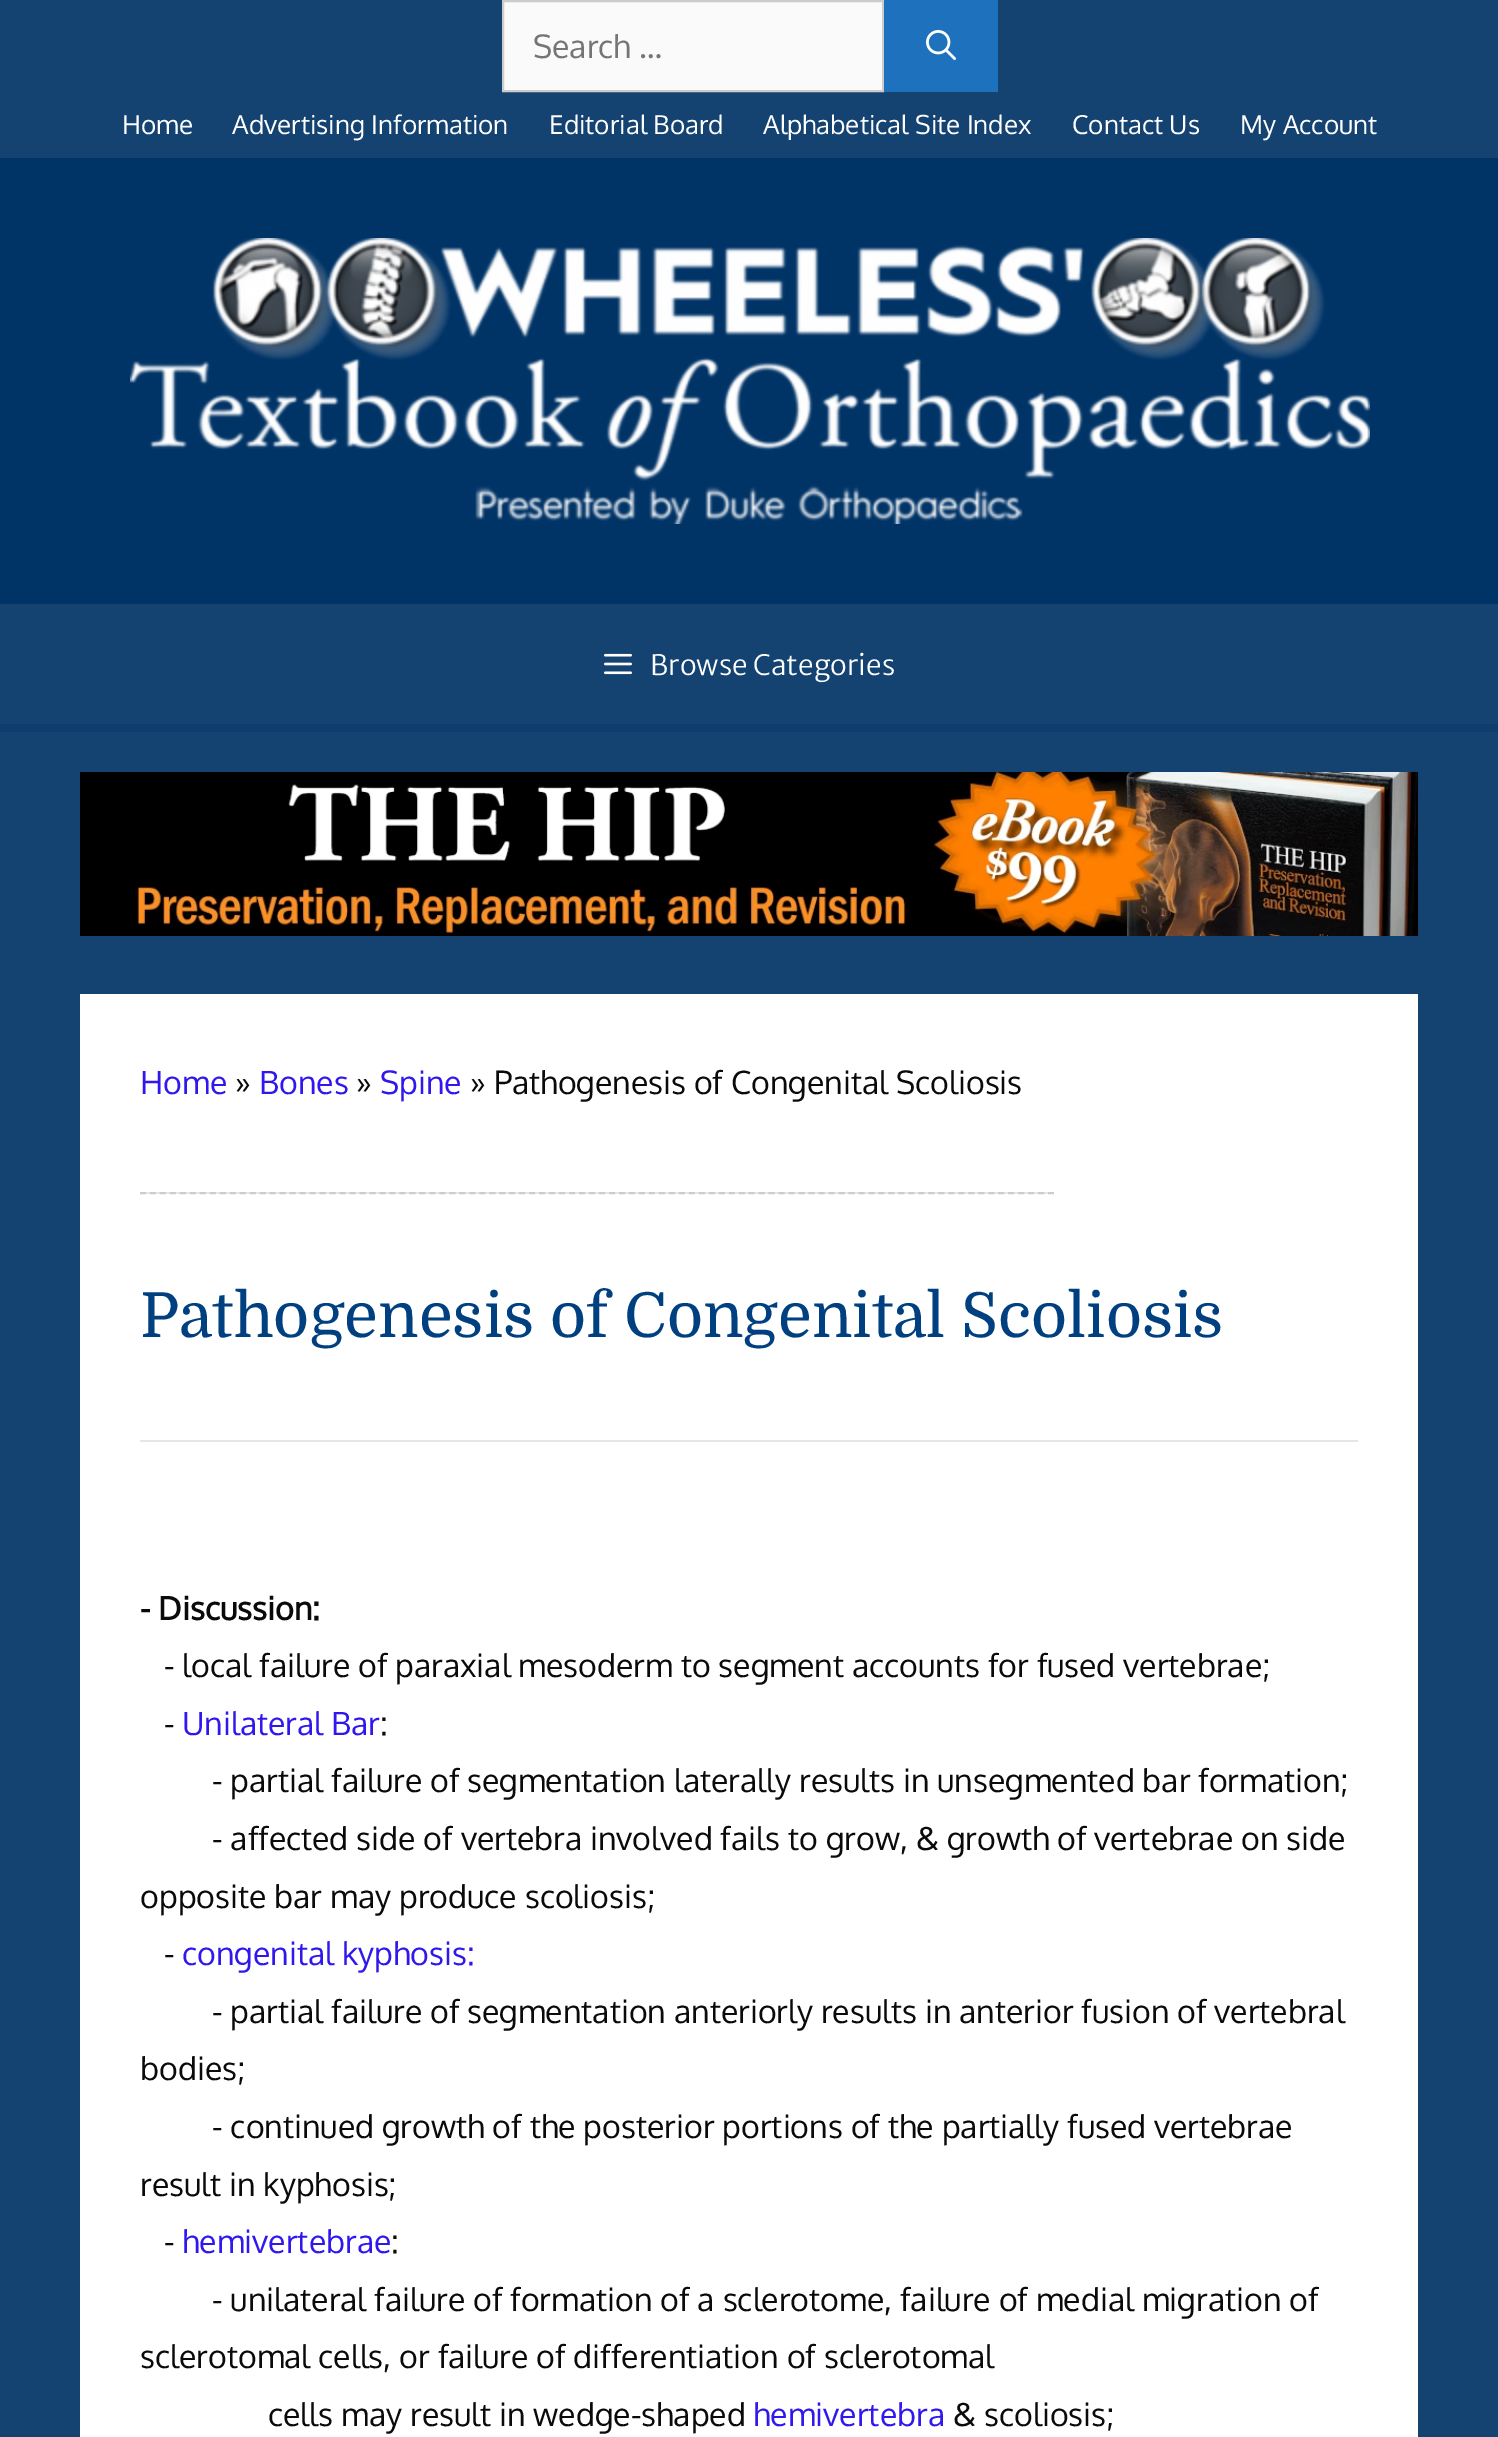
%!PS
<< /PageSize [1498 2437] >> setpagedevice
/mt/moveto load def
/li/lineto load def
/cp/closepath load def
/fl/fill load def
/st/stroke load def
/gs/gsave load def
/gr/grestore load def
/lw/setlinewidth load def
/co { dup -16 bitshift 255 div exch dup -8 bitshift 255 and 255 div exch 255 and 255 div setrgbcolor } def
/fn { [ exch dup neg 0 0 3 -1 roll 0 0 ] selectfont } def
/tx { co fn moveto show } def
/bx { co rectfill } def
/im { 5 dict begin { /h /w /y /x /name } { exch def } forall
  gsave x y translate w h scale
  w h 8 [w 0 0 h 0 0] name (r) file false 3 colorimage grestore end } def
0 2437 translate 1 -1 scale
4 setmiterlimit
0 0 1498 2437 16#144371 bx
16#FAFAFA co
503 1 mt 883 1 li 883 91 li 503 91 li cp gs fl gr
16#CCCCCC co
2 lw
st
884 0 114 92 16#1E72BD bx
(media/1.raw) 926 30 30 30 im
0 158 1498 446 16#003366 bx
(media/2.raw) 130 238 1240 286 im
0 724 1498 8 16#0C3D6D bx
(media/3.raw) 604 653 28 22 im
(media/4.raw) 80 772 1338 164 im
80 994 1338 1443 16#FFFFFF bx
140 1192 914 2 16#E6E6E6 bx
16#CCCCCC co
[6 3.98] 0 setdash
140 1193 mt 1054 1193 li st
140 1440 1218 2 16#E6E6E6 bx
(Search …) 533 58 /Oxygen-Regular 32 16#757575 tx
(Home) 122 134 /Oxygen-Regular 26 16#FFFFFF tx
(Advertising Information) 232 134 /Oxygen-Regular 26 16#FFFFFF tx
(Editorial Board) 549 134 /Oxygen-Regular 26 16#FFFFFF tx
(Alphabetical Site Index) 763 134 /Oxygen-Regular 26 16#FFFFFF tx
(Contact Us) 1072 134 /Oxygen-Regular 26 16#FFFFFF tx
(My Account) 1240 134 /Oxygen-Regular 26 16#FFFFFF tx
(Browse Categories) 650 675 /MerriweatherSans-Light 28 16#FFFFFF tx
(Home) 140 1094 /Oxygen-Regular 32 16#3017ED tx
(») 235 1094 /Oxygen-Regular 32 16#0A0A0A tx
(Bones) 259 1094 /Oxygen-Regular 32 16#3017ED tx
(») 356 1094 /Oxygen-Regular 32 16#0A0A0A tx
(Spine) 380 1094 /Oxygen-Regular 32 16#3017ED tx
(» Pathogenesis of Congenital Scoliosis) 470 1094 /Oxygen-Regular 32 16#0A0A0A tx
(Pathogenesis of Congenital Scoliosis) 140 1337 /Domine-Regular 62 16#004080 tx
(- Discussion:) 140 1620 /Oxygen-Bold 32 16#0A0A0A tx
(- local failure of paraxial mesoderm to segment accounts for fused vertebrae;) 164 1677 /Oxygen-Regular 32 16#0A0A0A tx
(-) 164 1735 /Oxygen-Regular 32 16#0A0A0A tx
(Unilateral Bar) 182 1735 /Oxygen-Regular 32 16#3017ED tx
(:) 380 1735 /Oxygen-Regular 32 16#0A0A0A tx
(- partial failure of segmentation laterally results in unsegmented bar formation;) 212 1792 /Oxygen-Regular 32 16#0A0A0A tx
(- affected side of vertebra involved fails to grow, & growth of vertebrae on side) 212 1850 /Oxygen-Regular 32 16#0A0A0A tx
(opposite bar may produce scoliosis;) 140 1908 /Oxygen-Regular 32 16#0A0A0A tx
(-) 164 1965 /Oxygen-Regular 32 16#0A0A0A tx
(congenital kyphosis:) 182 1965 /Oxygen-Regular 32 16#3017ED tx
(- partial failure of segmentation anteriorly results in anterior fusion of vertebral) 212 2023 /Oxygen-Regular 32 16#0A0A0A tx
(bodies;) 140 2080 /Oxygen-Regular 32 16#0A0A0A tx
(- continued growth of the posterior portions of the partially fused vertebrae) 212 2138 /Oxygen-Regular 32 16#0A0A0A tx
(result in kyphosis;) 140 2196 /Oxygen-Regular 32 16#0A0A0A tx
(-) 164 2253 /Oxygen-Regular 32 16#0A0A0A tx
(hemivertebrae) 182 2253 /Oxygen-Regular 32 16#3017ED tx
(:) 391 2253 /Oxygen-Regular 32 16#0A0A0A tx
(- unilateral failure of formation of a sclerotome, failure of medial migration of) 212 2311 /Oxygen-Regular 32 16#0A0A0A tx
(sclerotomal cells, or failure of differentiation of sclerotomal) 140 2368 /Oxygen-Regular 32 16#0A0A0A tx
(cells may result in wedge-shaped) 268 2426 /Oxygen-Regular 32 16#0A0A0A tx
(hemivertebra) 753 2426 /Oxygen-Regular 32 16#3017ED tx
(& scoliosis;) 953 2426 /Oxygen-Regular 32 16#0A0A0A tx
showpage
